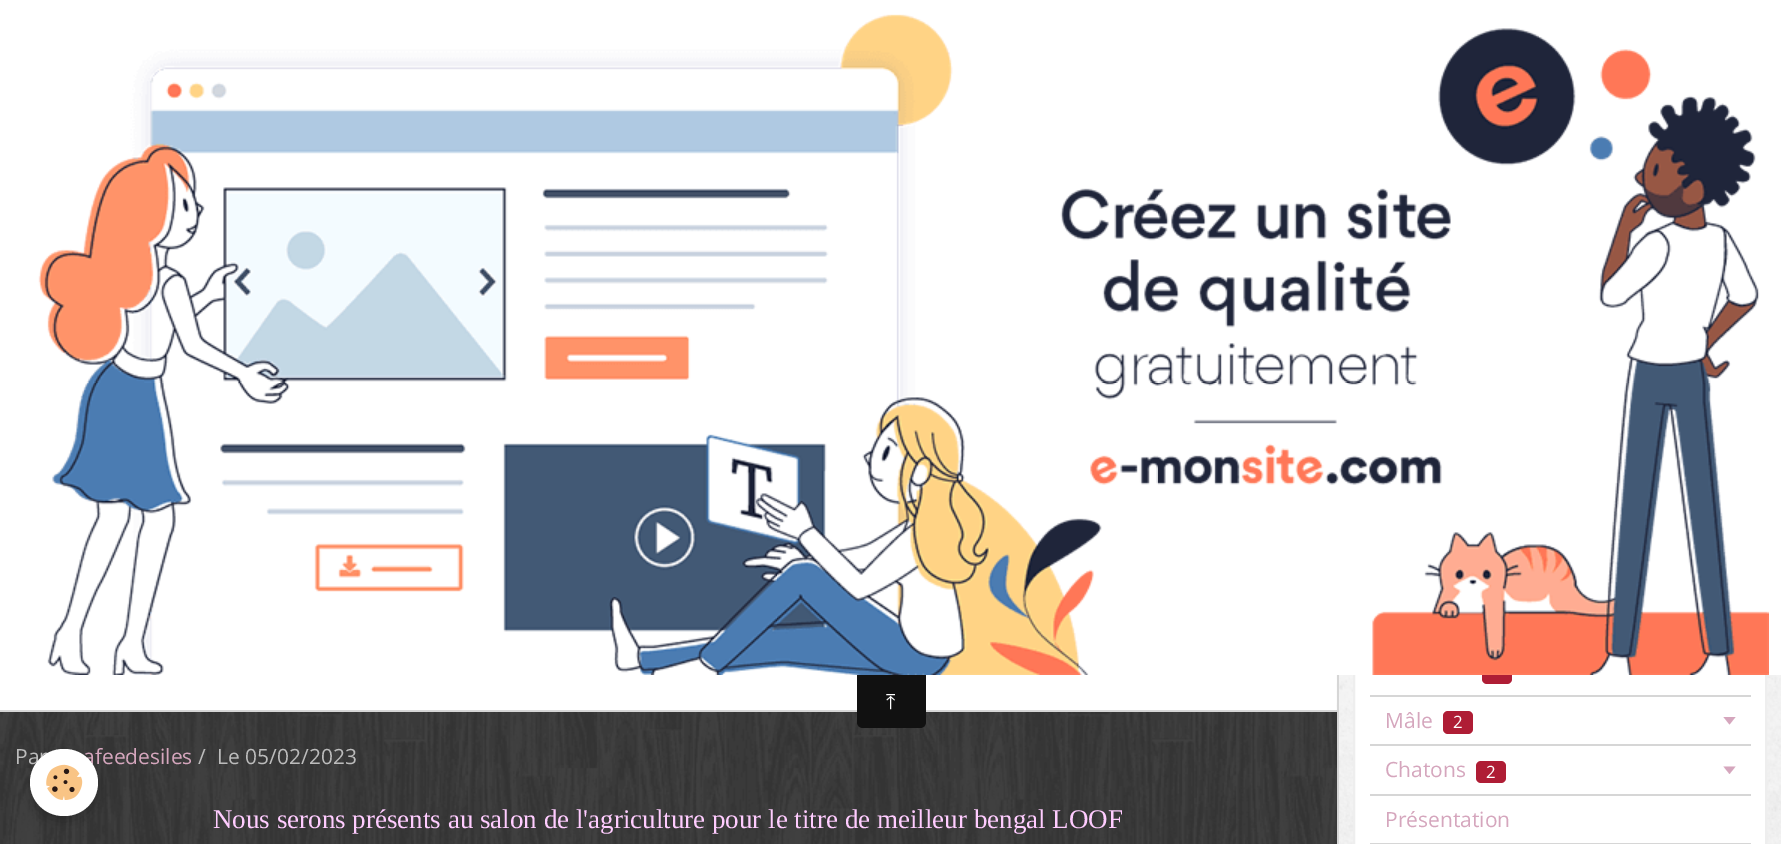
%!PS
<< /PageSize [1781 844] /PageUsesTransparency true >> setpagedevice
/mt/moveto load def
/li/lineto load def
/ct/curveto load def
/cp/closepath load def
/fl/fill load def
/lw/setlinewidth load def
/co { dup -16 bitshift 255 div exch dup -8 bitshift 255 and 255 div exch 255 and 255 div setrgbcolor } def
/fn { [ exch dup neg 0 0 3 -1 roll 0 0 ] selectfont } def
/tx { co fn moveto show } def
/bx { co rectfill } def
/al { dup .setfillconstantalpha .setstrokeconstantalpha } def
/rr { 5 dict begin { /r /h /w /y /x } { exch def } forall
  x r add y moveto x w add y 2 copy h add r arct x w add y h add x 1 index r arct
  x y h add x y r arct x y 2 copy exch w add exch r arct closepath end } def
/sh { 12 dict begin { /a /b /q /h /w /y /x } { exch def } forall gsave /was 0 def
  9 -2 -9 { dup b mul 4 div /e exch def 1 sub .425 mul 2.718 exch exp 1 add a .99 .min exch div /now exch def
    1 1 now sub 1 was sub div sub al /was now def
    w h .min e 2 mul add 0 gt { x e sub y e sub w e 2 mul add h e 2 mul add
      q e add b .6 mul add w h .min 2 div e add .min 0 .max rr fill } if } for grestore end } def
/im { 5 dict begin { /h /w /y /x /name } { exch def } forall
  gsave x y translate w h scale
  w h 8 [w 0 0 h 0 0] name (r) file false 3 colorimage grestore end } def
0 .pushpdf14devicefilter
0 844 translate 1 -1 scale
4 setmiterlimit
0 0 1781 844 16#404040 bx
(media/1.raw) 0 712 1337 132 im
1339 675 442 169 16#F8F8F8 bx
0 675 1337 35 16#FFFFFF bx
0 710 1337 2 16#D6D6D6 bx
(media/3.raw) 1336 675 445 169 im
1355 675 410 169 16#FFFFFF bx
16#EEEEEE co
2 lw
1354 568 412 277 rectstroke
16#AF1D35 co
1482 662 30 22 5 rr fl
0 0 1781 675 16#FFFFFF bx
(media/2.raw) 38 14 1731 661 im
16#111111 co
857 675 mt 926 675 li 926 722 li 926 725.5 923.5 728 920 728 ct 863 728 li 859.5 728 857 725.5 857 722 ct cp fl
1337 675 2 169 16#D6D6D6 bx
1370 695 381 2 16#D6D6D6 bx
1370 744 381 2 16#D6D6D6 bx
16#AF1D35 co
1443 711 30 23 5 rr fl
16#D5A6BD co
1723.5 717 mt 1735.5 717 li 1729.5 724.5 li cp fl
1370 794 381 2 16#D6D6D6 bx
16#AF1D35 co
1476 761 30 22 5 rr fl
16#D5A6BD co
1723.5 766.5 mt 1735.5 766.5 li 1729.5 774 li cp fl
1370 843 381 1 16#D6D6D6 bx
16#000000 co
30 753 68 68 34 7.5 .24 sh
(⤒) 886 709 /FreeSerif-Regular 21 16#FFFFFF tx
(Par) 15 764 /OpenSans-Regular 21 16#BCBCBC tx
(afeedesiles) 83 764 /OpenSans-Regular 21 16#D5A6BD tx
(/) 198 764 /OpenSans-Regular 21 16#BCBCBC tx
(Le 05/02/2023) 217 764 /OpenSans-Regular 21 16#BCBCBC tx
(Nous serons présents au salon de l'agriculture pour le titre de meilleur bengal LOOF) 213 828 /LiberationSerif-Regular 27 16#FFCCFF tx
(Mâle) 1385 728 /OpenSans-Regular 21 16#D5A6BD tx
(2) 1453 728 /OpenSans-Regular 17 16#FFFFFF tx
(Chatons) 1385 777 /OpenSans-Regular 21 16#D5A6BD tx
(2) 1486 778 /OpenSans-Regular 17 16#FFFFFF tx
(Présentation) 1385 827 /OpenSans-Regular 21 16#D5A6BD tx
16#FFFFFF co
30 749 68 67 33.5 rr fl
(media/4.raw) 46 764 37 36 im
.poppdf14devicefilter showpage
